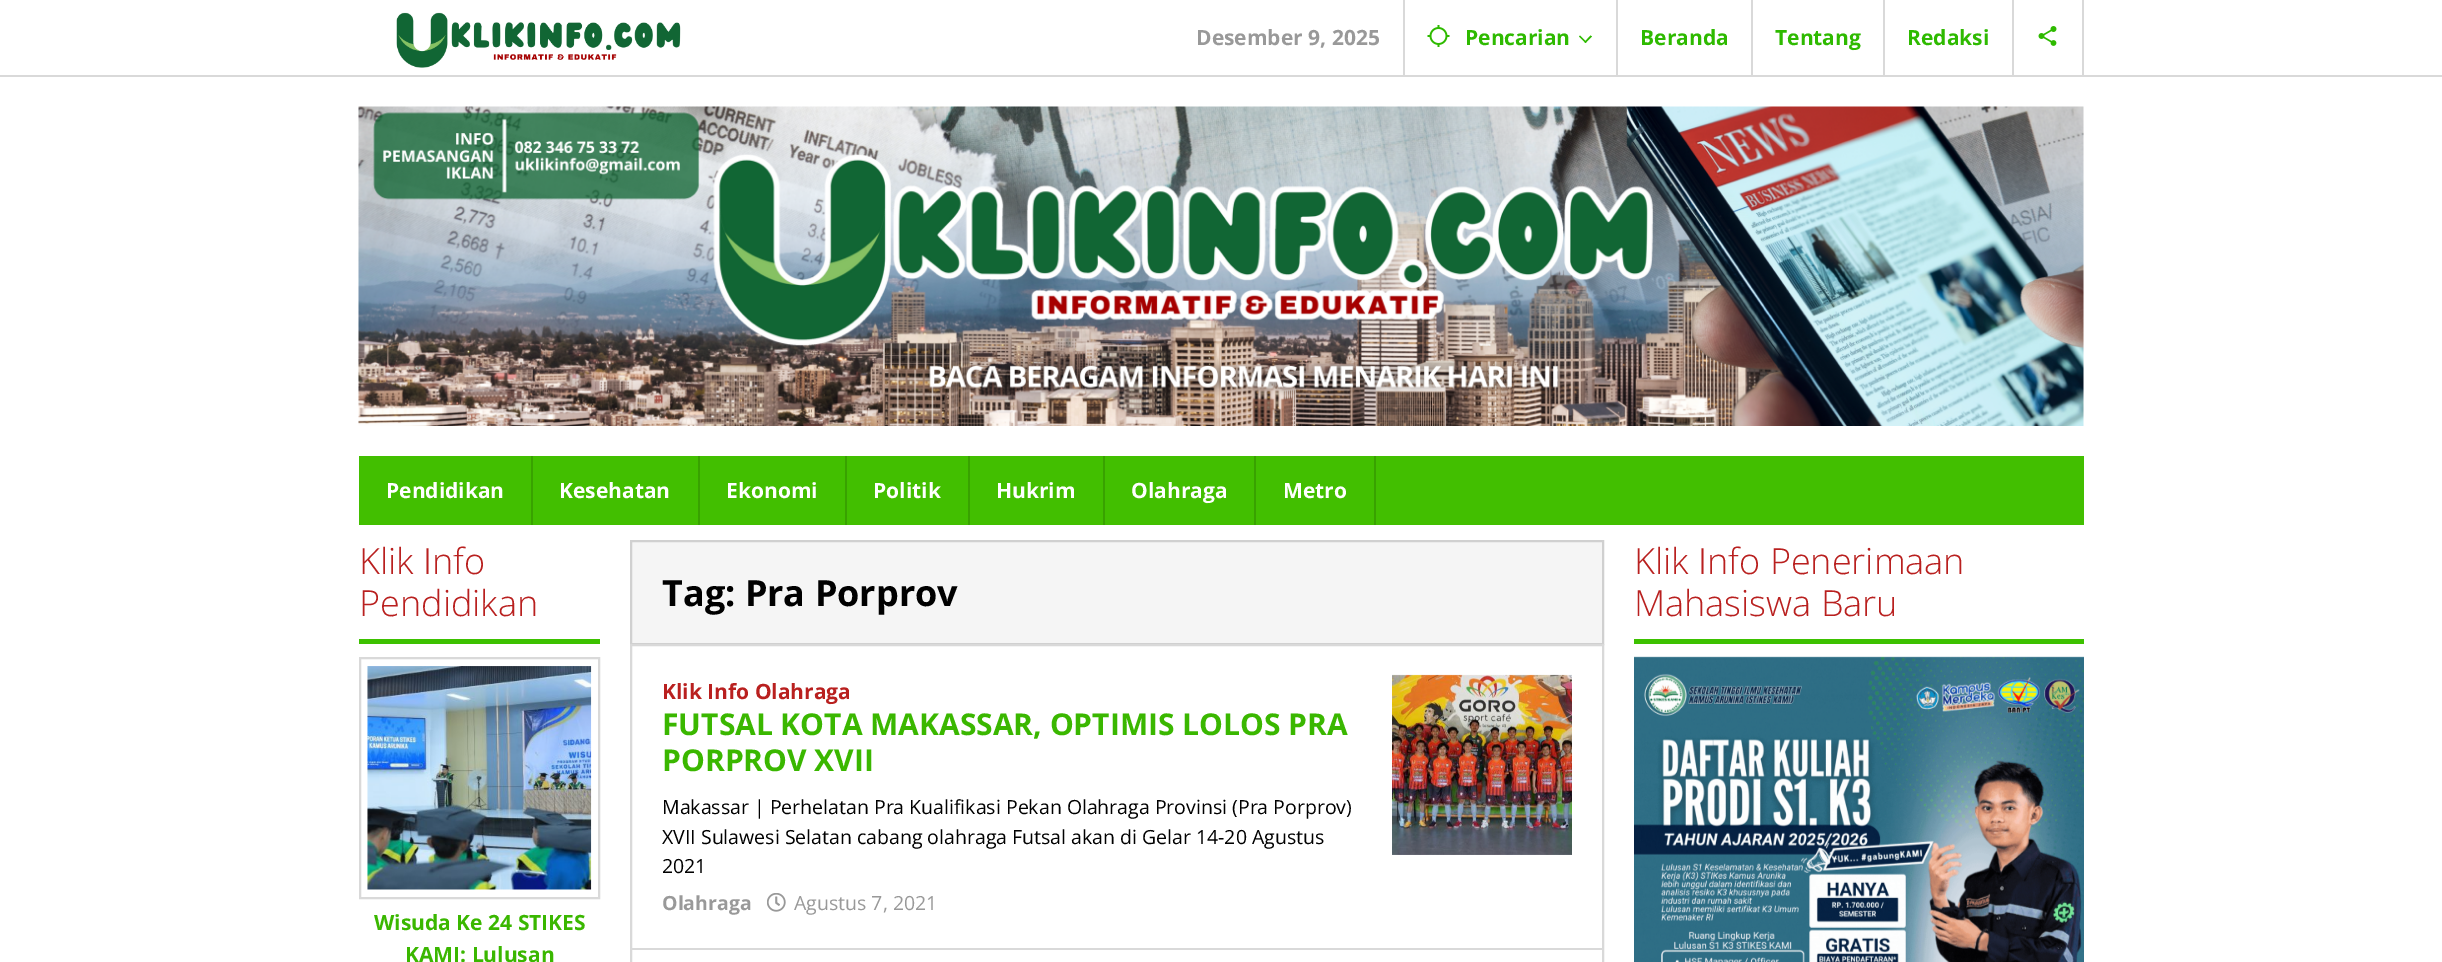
%!PS
<< /PageSize [2442 962] >> setpagedevice
/mt/moveto load def
/li/lineto load def
/cp/closepath load def
/fl/fill load def
/st/stroke load def
/gs/gsave load def
/gr/grestore load def
/lw/setlinewidth load def
/co { dup -16 bitshift 255 div exch dup -8 bitshift 255 and 255 div exch 255 and 255 div setrgbcolor } def
/fn { [ exch dup neg 0 0 3 -1 roll 0 0 ] selectfont } def
/tx { co fn moveto show } def
/bx { co rectfill } def
/im { 5 dict begin { /h /w /y /x /name } { exch def } forall
  gsave x y translate w h scale
  w h 8 [w 0 0 h 0 0] name (r) file false 3 colorimage grestore end } def
0 962 translate 1 -1 scale
4 setmiterlimit
0 0 2442 962 16#FFFFFF bx
0 75 2442 2 16#D9D9D9 bx
(media/1.raw) 396 12 285 56 im
1403 0 2 75 16#D9D9D9 bx
1616 0 2 75 16#D9D9D9 bx
(media/2.raw) 1427 25 23 22 im
16#2EBA00 co
1590.5 35.5 mt 1592 36.5 li 1585.5 43 li 1584.5 42 li cp fl
1580 35.5 mt 1586.5 42 li 1585.5 43 li 1579 36.5 li cp fl
1751 0 2 75 16#D9D9D9 bx
1883 0 2 75 16#D9D9D9 bx
2012 0 2 75 16#D9D9D9 bx
2082 0 2 75 16#D9D9D9 bx
(media/3.raw) 2038 26 19 20 im
(media/4.raw) 358 106 1726 320 im
359 456 1725 69 16#42BF00 bx
531 456 2 69 16#38A200 bx
698 456 2 69 16#38A200 bx
845 456 2 69 16#38A200 bx
968 456 2 69 16#38A200 bx
1103 456 2 69 16#38A200 bx
1254 456 2 69 16#38A200 bx
1374 456 2 69 16#38A200 bx
359 639 241 5 16#3DC100 bx
16#D9D9D9 co
2 lw
360 658 239 240 rectstroke
(media/5.raw) 367 666 225 224 im
16#F5F5F5 co
631 541 mt 1603 541 li 1603 644 li 631 644 li cp gs fl gr
16#D0D0D0 co
st
16#D9D9D9 co
631 645 972 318 rectstroke
632 948 970 2 16#D9D9D9 bx
(media/6.raw) 767 893 19 19 im
(media/7.raw) 1392 674 180 181 im
1634 639 450 5 16#3DC100 bx
(media/8.raw) 1634 656 450 306 im
(Desember 9, 2025) 1196 45 /OpenSans-Bold 21 16#999999 tx
(Pencarian) 1465 45 /OpenSans-Bold 21 16#2EBA00 tx
(Beranda) 1640 45 /OpenSans-Bold 21 16#2EBA00 tx
(Tentang) 1775 45 /OpenSans-Bold 21 16#2EBA00 tx
(Redaksi) 1907 45 /OpenSans-Bold 21 16#2EBA00 tx
(Pendidikan) 386 498 /OpenSans-Bold 21 16#FFFFFF tx
(Kesehatan) 559 498 /OpenSans-Bold 21 16#FFFFFF tx
(Ekonomi) 726 498 /OpenSans-Bold 21 16#FFFFFF tx
(Politik) 873 498 /OpenSans-Bold 21 16#FFFFFF tx
(Hukrim) 996 498 /OpenSans-Bold 21 16#FFFFFF tx
(Olahraga) 1131 498 /OpenSans-Bold 21 16#FFFFFF tx
(Metro) 1283 498 /OpenSans-Bold 21 16#FFFFFF tx
(Klik Info) 359 574 /OpenSans-Light 36 16#B9201F tx
(Pendidikan) 359 616 /OpenSans-Light 36 16#B9201F tx
(Wisuda Ke 24 STIKES) 374 930 /OpenSans-Bold 21 16#3AB700 tx
(KAMI: Lulusan) 405 962 /OpenSans-Bold 21 16#3AB700 tx
(Tag: Pra Porprov) 662 606 /OpenSans-Bold 36 16#000000 tx
(Klik Info Olahraga) 662 699 /OpenSans-Bold 21 16#B9201F tx
(FUTSAL KOTA MAKASSAR, OPTIMIS LOLOS PRA) 662 735 /OpenSans-Bold 30 16#3AB700 tx
(PORPROV XVII) 662 771 /OpenSans-Bold 30 16#3AB700 tx
(Makassar | Perhelatan Pra Kualifikasi Pekan Olahraga Provinsi \(Pra Porprov\)) 662 814 /OpenSans-Regular 19.5 16#000000 tx
(XVII Sulawesi Selatan cabang olahraga Futsal akan di Gelar 14-20 Agustus) 662 844 /OpenSans-Regular 19.5 16#000000 tx
(2021) 662 873 /OpenSans-Regular 19.5 16#000000 tx
(Olahraga) 662 910 /OpenSans-Bold 19.5 16#999999 tx
(Agustus 7, 2021) 794 910 /OpenSans-Regular 19.5 16#999999 tx
(Klik Info Penerimaan) 1634 574 /OpenSans-Light 36 16#B9201F tx
(Mahasiswa Baru) 1634 616 /OpenSans-Light 36 16#B9201F tx
showpage
